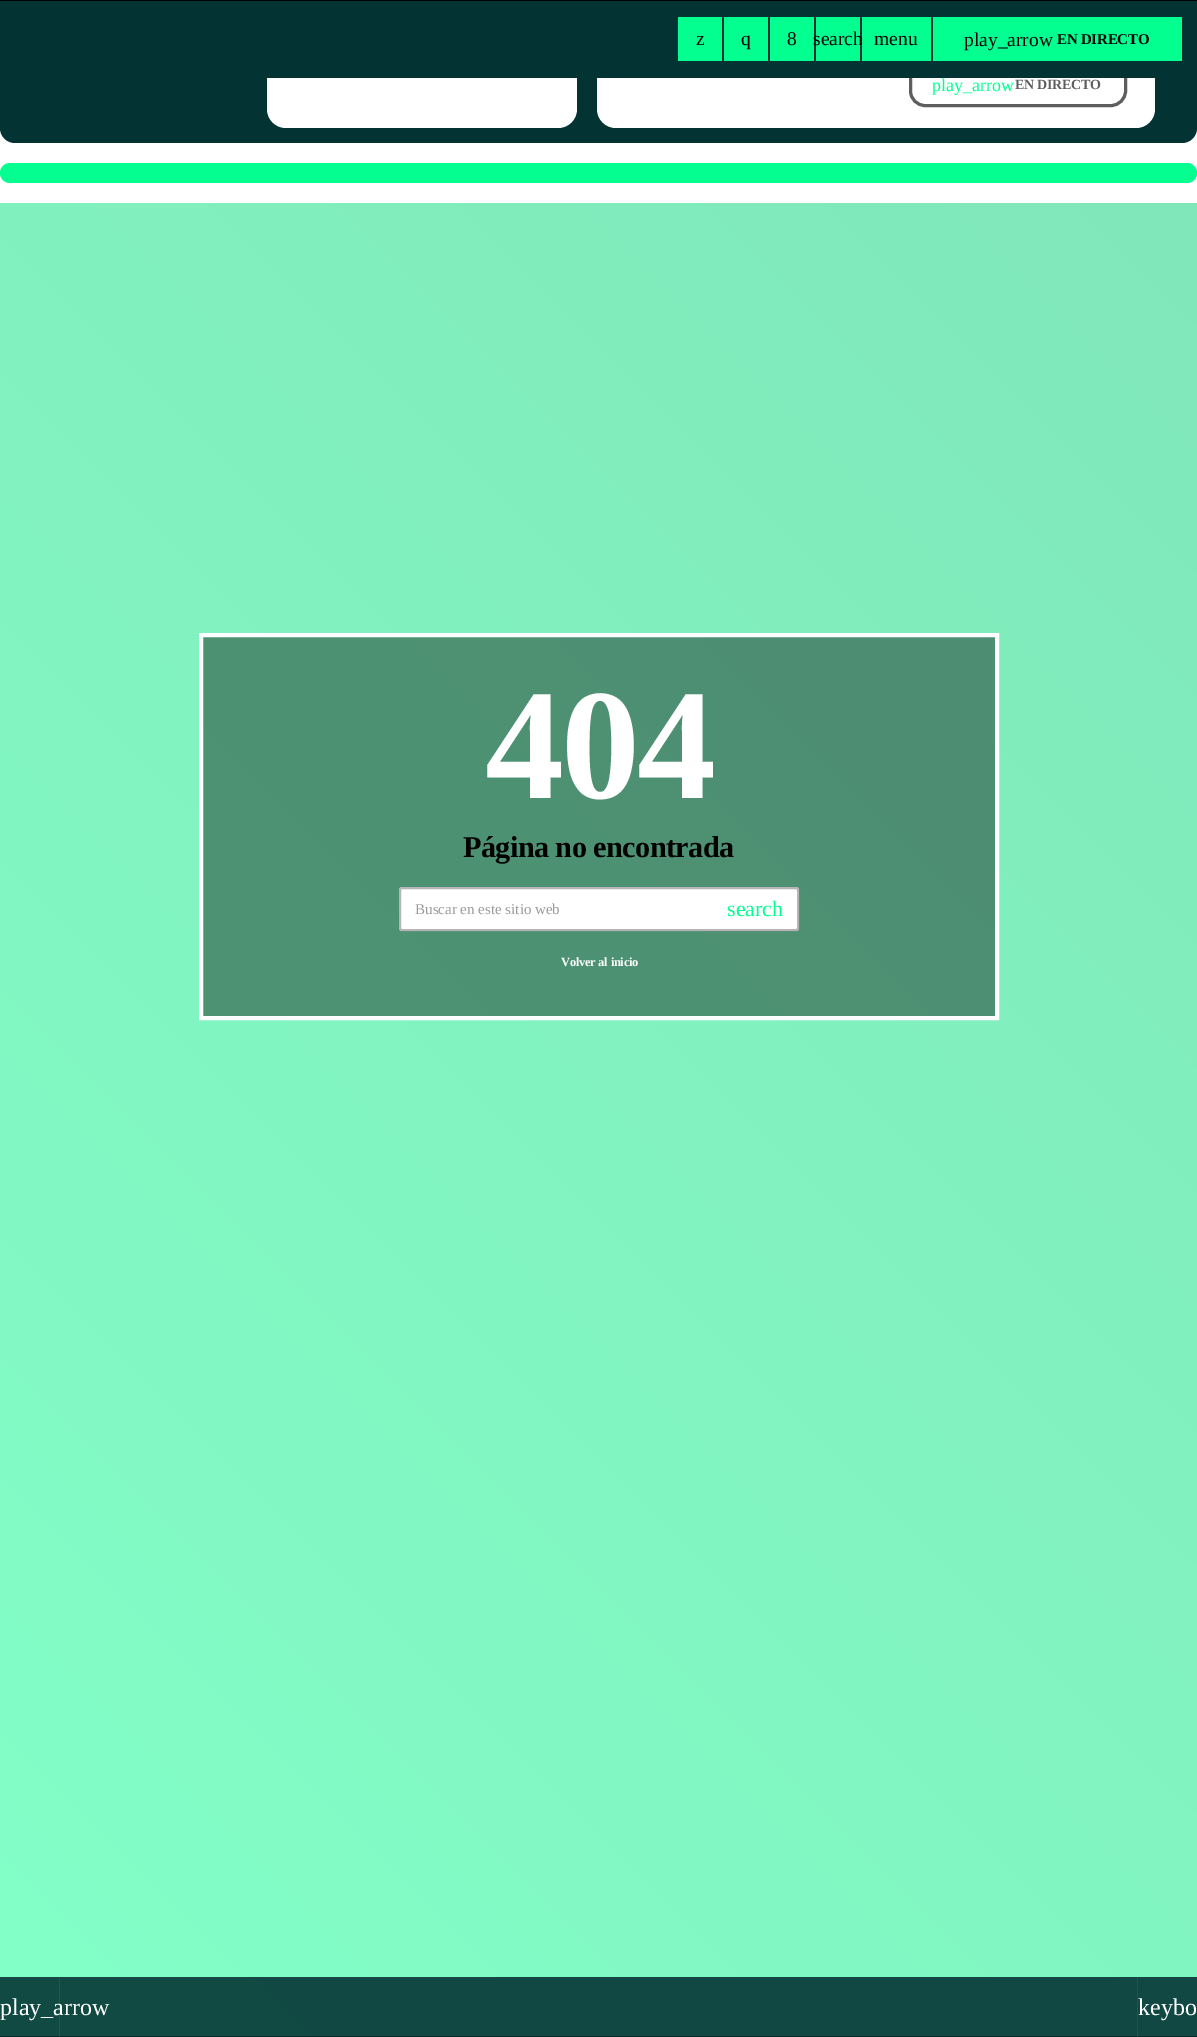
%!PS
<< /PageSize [1197 2037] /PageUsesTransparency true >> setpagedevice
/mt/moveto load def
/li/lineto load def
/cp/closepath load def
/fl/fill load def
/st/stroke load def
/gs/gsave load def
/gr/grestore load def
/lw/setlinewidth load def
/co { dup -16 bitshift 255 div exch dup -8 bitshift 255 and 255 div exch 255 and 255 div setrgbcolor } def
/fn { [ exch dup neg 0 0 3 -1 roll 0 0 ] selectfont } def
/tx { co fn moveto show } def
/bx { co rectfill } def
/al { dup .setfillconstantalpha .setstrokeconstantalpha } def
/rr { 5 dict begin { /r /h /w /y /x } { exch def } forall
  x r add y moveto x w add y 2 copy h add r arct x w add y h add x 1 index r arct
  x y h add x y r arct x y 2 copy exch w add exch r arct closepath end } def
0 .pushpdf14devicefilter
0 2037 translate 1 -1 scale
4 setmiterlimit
0 0 1197 2037 16#FFFFFF bx
0 0 1197 1 16#000000 bx
16#033333 co
0 20 1197 123 15 rr fl
16#FFFFFF co
267 35 310 93 19 rr fl
597 35 558 93 19 rr fl
16#5E5E5E co
3 lw
910.5 64.5 215 41 14.5 rr st
0 1 1197 77 16#033333 bx
678 17 44 44 16#04FF91 bx
724 17 44 44 16#04FF91 bx
770 17 44 44 16#04FF91 bx
816 17 44 44 16#04FF91 bx
933 17 249 44 16#04FF91 bx
16#04FF90 co
0 163 1197 20 10 rr fl
gs 0 203 mt 1197 203 li 1197 1977 li 0 1977 li cp clip newpath
<< /ShadingType 2 /ColorSpace /DeviceRGB /Coords [-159 1877 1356 362] /Extend [true true] /Function << /FunctionType 2 /Domain [0 1] /C0 [.51 1 .784] /C1 [.502 .906 .729] /N 1 >> >> shfill gr
gs 0 1977 mt 1197 1977 li 1197 2036 li 0 2036 li cp clip newpath
<< /ShadingType 2 /ColorSpace /DeviceRGB /Coords [-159 1877 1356 362] /Extend [true true] /Function << /FunctionType 2 /Domain [0 1] /C0 [.067 .286 .263] /C1 [.067 .275 .259] /N 1 >> >> shfill gr
gs 1137 1977 mt 1138 1977 li 1138 2036 li 1137 2036 li cp clip newpath
<< /ShadingType 2 /ColorSpace /DeviceRGB /Coords [-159 1877 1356 362] /Extend [true true] /Function << /FunctionType 2 /Domain [0 1] /C0 [.165 .318 .302] /C1 [.165 .31 .298] /N 1 >> >> shfill gr
gs 59 1977 mt 60 1977 li 60 2036 li 59 2036 li cp clip newpath
<< /ShadingType 2 /ColorSpace /DeviceRGB /Coords [-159 1877 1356 362] /Extend [true true] /Function << /FunctionType 2 /Domain [0 1] /C0 [.165 .318 .302] /C1 [.165 .31 .298] /N 1 >> >> shfill gr
gs 203 637 mt 995 637 li 995 1016 li 203 1016 li cp clip newpath
<< /ShadingType 2 /ColorSpace /DeviceRGB /Coords [-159 1877 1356 362] /Extend [true true] /Function << /FunctionType 2 /Domain [0 1] /C0 [.306 .6 .471] /C1 [.302 .545 .439] /N 1 >> >> shfill gr
16#FFFFFF co
4 lw
201 635 796 383 rectstroke
399 887 400 44 3 rr fl
0.7 al
16#969696 co
2 lw
400 888 398 42 2 rr st
1 al
0 2036 1197 1 16#032D2D bx
1137 2036 1 1 16#203E3E bx
59 2036 1 1 16#203E3E bx
/LiberationSerif-Regular 19.5 fn
16#020202 co
696 45 mt -.25 0 (z) ashow
741 45 mt -.25 0 (q) ashow
787 45 mt -.25 0 (8) ashow
(search) 813 45 /LiberationSerif-Regular 19.5 16#020202 tx
862 17 69 44 16#04FF91 bx
(menu) 874 45 /LiberationSerif-Regular 19.5 16#020202 tx
(play_arrow) 964 46 /LiberationSerif-Regular 19.5 16#020202 tx
/LiberationSerif-Bold 15 fn
1057 44 mt -.25 0 (EN DIRECTO) ashow
/LiberationSerif-Bold 14 fn
16#5E5E5E co
1015 89 mt -.25 0 (EN DIRECTO) ashow
(play_arrow) 932 91 /LiberationSerif-Regular 18 16#04FF91 tx
/LiberationSerif-Bold 158 fn
16#FFFFFF co
485 798 mt -3 0 (404) ashow
/LiberationSerif-Bold 30.25 fn
16#020202 co
463 857 mt -.6 0 (Página no encontrada) ashow
(Buscar en este sitio web) 415 914 /LiberationSerif-Regular 15 16#9A9A9A tx
(search) 727 916 /LiberationSerif-Regular 22 16#04FF91 tx
/LiberationSerif-Bold 12.5 fn
16#FFFFFF co
561 966 mt -.25 0 (Volver al inicio) ashow
(play_arrow) 0 2015 /LiberationSerif-Regular 24 16#FFFFFF tx
(keybo) 1138 2015 /LiberationSerif-Regular 24 16#FFFFFF tx
.poppdf14devicefilter showpage
